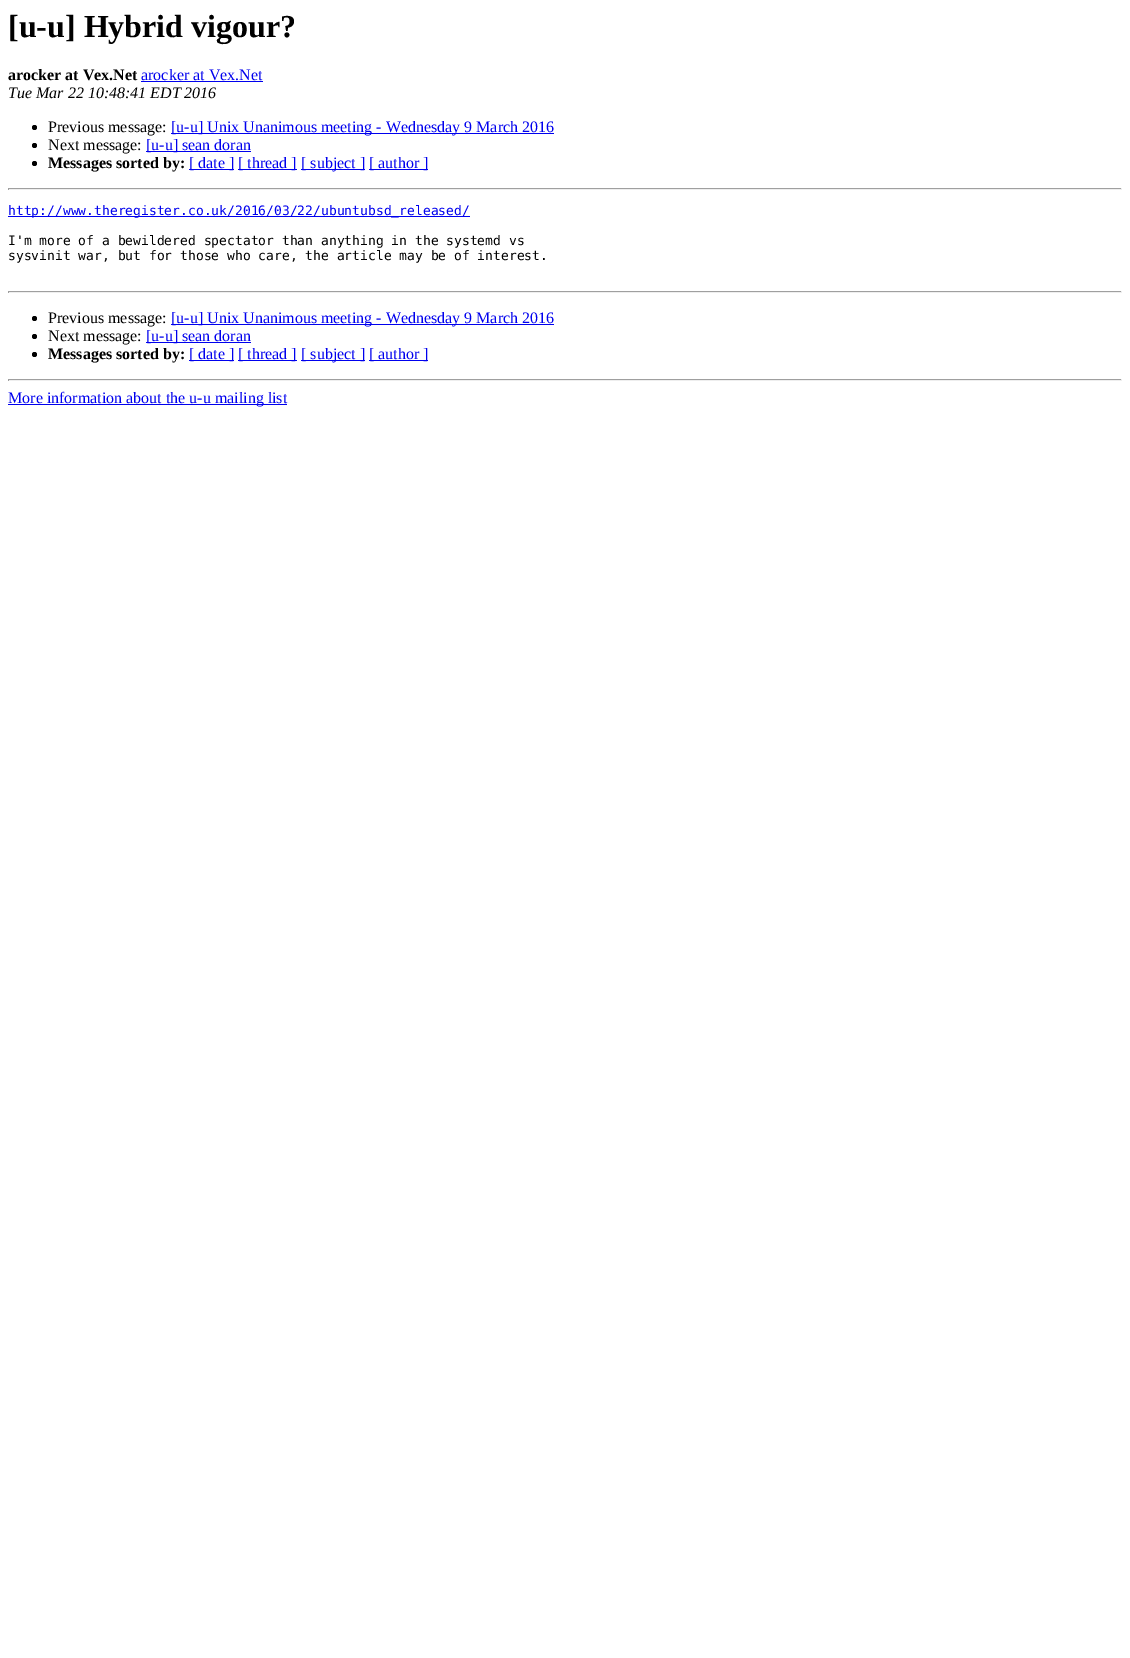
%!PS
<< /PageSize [1130 1658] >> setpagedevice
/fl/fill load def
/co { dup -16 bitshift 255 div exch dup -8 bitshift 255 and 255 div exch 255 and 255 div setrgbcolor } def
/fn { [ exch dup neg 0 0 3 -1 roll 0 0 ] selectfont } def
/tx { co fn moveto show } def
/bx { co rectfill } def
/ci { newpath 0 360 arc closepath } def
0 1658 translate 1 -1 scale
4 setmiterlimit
0 0 1130 1658 16#FFFFFF bx
141 81 122 1 16#0000EE bx
16#000000 co
34.5 127.5 2.5 ci fl
171 133 383 1 16#0000EE bx
16#000000 co
34.5 145.5 2.5 ci fl
146 151 105 1 16#0000EE bx
16#000000 co
34.5 163.5 2.5 ci fl
189 169 45 1 16#0000EE bx
238 169 59 1 16#0000EE bx
301 169 64 1 16#0000EE bx
369 169 59 1 16#0000EE bx
8 188 1114 1 16#9F9F9F bx
1121 188 1 2 16#EEEEEE bx
8 189 1114 1 16#EEEEEE bx
8 188 1 2 16#9F9F9F bx
8 216 462 1 16#0000EE bx
8 291 1114 1 16#9F9F9F bx
1121 291 1 2 16#EEEEEE bx
8 292 1114 1 16#EEEEEE bx
8 291 1 2 16#9F9F9F bx
16#000000 co
34.5 318.5 2.5 ci fl
171 324 383 1 16#0000EE bx
16#000000 co
34.5 336.5 2.5 ci fl
146 342 105 1 16#0000EE bx
16#000000 co
34.5 354.5 2.5 ci fl
189 360 45 1 16#0000EE bx
238 360 59 1 16#0000EE bx
301 360 64 1 16#0000EE bx
369 360 59 1 16#0000EE bx
8 379 1114 1 16#9F9F9F bx
1121 379 1 2 16#EEEEEE bx
8 380 1114 1 16#EEEEEE bx
8 379 1 2 16#9F9F9F bx
8 404 279 1 16#0000EE bx
([u-u] Hybrid vigour?) 8 37 /LiberationSerif-Bold 32 16#000000 tx
(arocker at Vex.Net) 8 80 /LiberationSerif-Bold 16 16#000000 tx
(arocker at Vex.Net) 141 80 /LiberationSerif-Regular 16 16#0000EE tx
(Tue Mar 22 10:48:41 EDT 2016) 8 98 /LiberationSerif-Italic 16 16#000000 tx
(Previous message:) 48 132 /LiberationSerif-Regular 16 16#000000 tx
([u-u] Unix Unanimous meeting - Wednesday 9 March 2016) 171 132 /LiberationSerif-Regular 16 16#0000EE tx
(Next message:) 48 150 /LiberationSerif-Regular 16 16#000000 tx
([u-u] sean doran) 146 150 /LiberationSerif-Regular 16 16#0000EE tx
(Messages sorted by:) 48 168 /LiberationSerif-Bold 16 16#000000 tx
([ date ]) 189 168 /LiberationSerif-Regular 16 16#0000EE tx
([ thread ]) 238 168 /LiberationSerif-Regular 16 16#0000EE tx
([ subject ]) 301 168 /LiberationSerif-Regular 16 16#0000EE tx
([ author ]) 369 168 /LiberationSerif-Regular 16 16#0000EE tx
(http://www.theregister.co.uk/2016/03/22/ubuntubsd_released/) 8 215 /DejaVuSansMono-Regular 13 16#0000EE tx
(I'm more of a bewildered spectator than anything in the systemd vs) 8 245 /DejaVuSansMono-Regular 13 16#000000 tx
(sysvinit war, but for those who care, the article may be of interest.) 8 260 /DejaVuSansMono-Regular 13 16#000000 tx
(Previous message:) 48 323 /LiberationSerif-Regular 16 16#000000 tx
([u-u] Unix Unanimous meeting - Wednesday 9 March 2016) 171 323 /LiberationSerif-Regular 16 16#0000EE tx
(Next message:) 48 341 /LiberationSerif-Regular 16 16#000000 tx
([u-u] sean doran) 146 341 /LiberationSerif-Regular 16 16#0000EE tx
(Messages sorted by:) 48 359 /LiberationSerif-Bold 16 16#000000 tx
([ date ]) 189 359 /LiberationSerif-Regular 16 16#0000EE tx
([ thread ]) 238 359 /LiberationSerif-Regular 16 16#0000EE tx
([ subject ]) 301 359 /LiberationSerif-Regular 16 16#0000EE tx
([ author ]) 369 359 /LiberationSerif-Regular 16 16#0000EE tx
(More information about the u-u mailing list) 8 403 /LiberationSerif-Regular 16 16#0000EE tx
showpage
